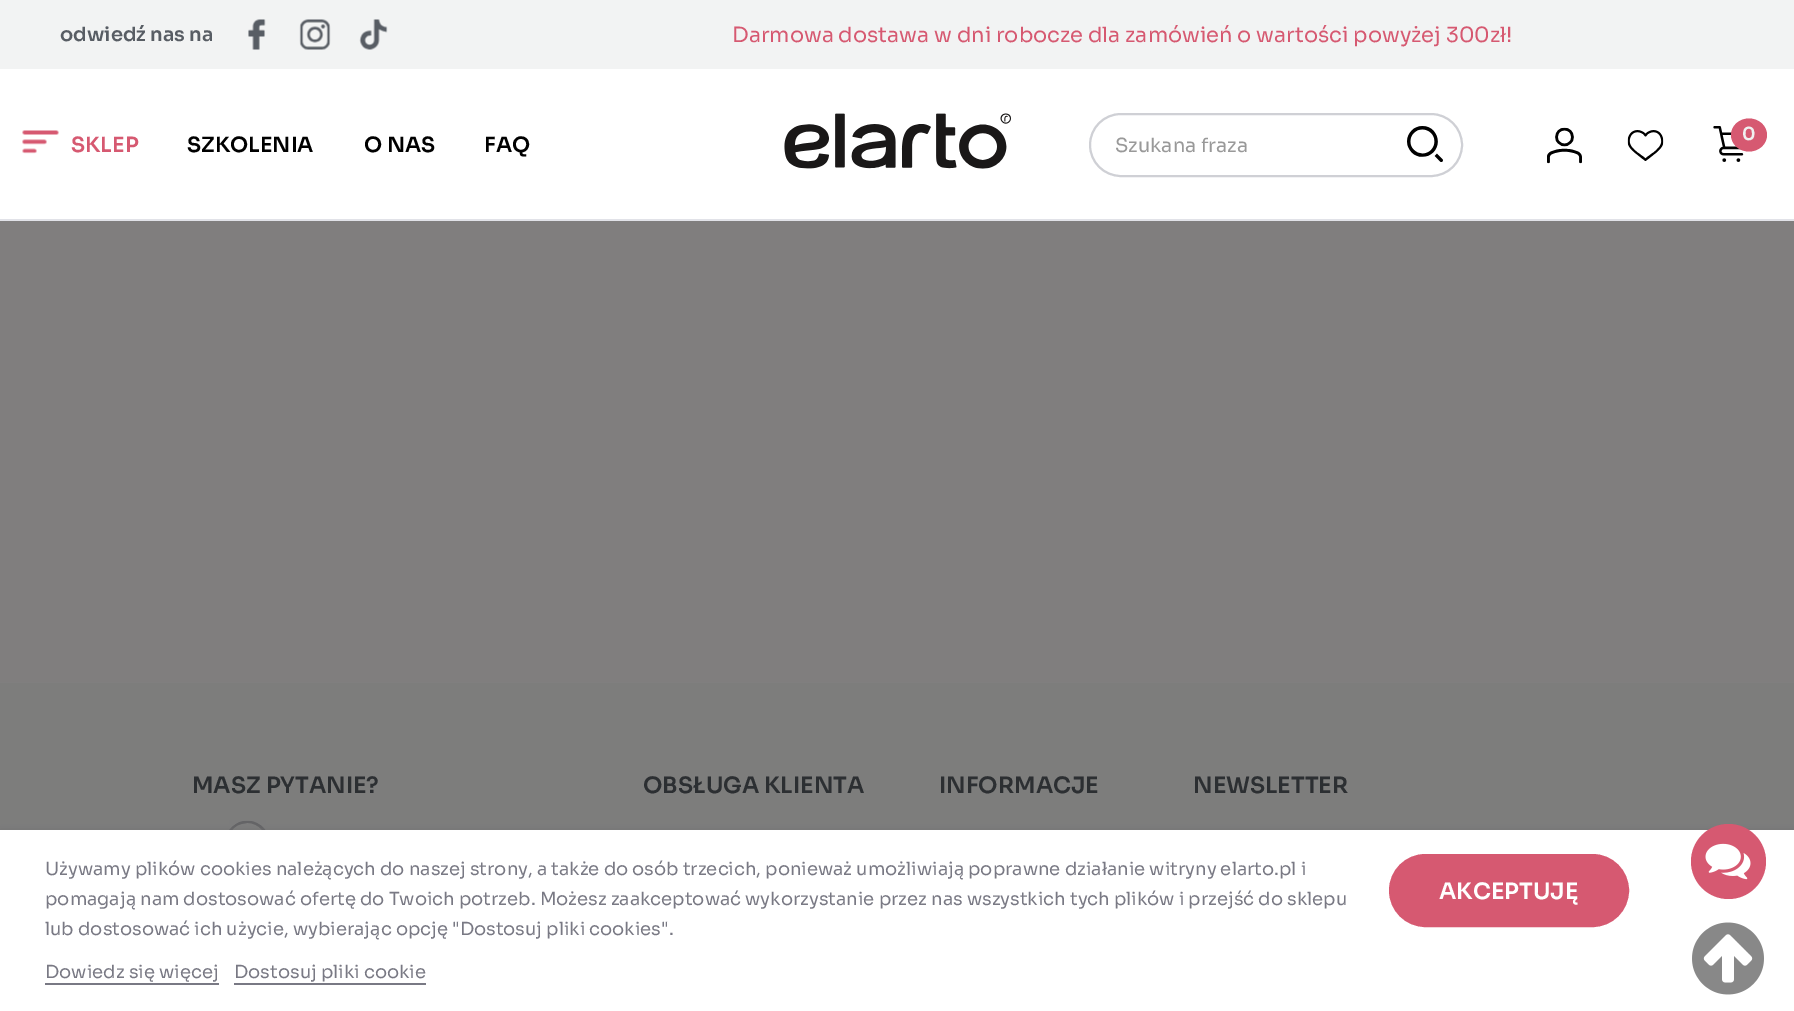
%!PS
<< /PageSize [1794 1011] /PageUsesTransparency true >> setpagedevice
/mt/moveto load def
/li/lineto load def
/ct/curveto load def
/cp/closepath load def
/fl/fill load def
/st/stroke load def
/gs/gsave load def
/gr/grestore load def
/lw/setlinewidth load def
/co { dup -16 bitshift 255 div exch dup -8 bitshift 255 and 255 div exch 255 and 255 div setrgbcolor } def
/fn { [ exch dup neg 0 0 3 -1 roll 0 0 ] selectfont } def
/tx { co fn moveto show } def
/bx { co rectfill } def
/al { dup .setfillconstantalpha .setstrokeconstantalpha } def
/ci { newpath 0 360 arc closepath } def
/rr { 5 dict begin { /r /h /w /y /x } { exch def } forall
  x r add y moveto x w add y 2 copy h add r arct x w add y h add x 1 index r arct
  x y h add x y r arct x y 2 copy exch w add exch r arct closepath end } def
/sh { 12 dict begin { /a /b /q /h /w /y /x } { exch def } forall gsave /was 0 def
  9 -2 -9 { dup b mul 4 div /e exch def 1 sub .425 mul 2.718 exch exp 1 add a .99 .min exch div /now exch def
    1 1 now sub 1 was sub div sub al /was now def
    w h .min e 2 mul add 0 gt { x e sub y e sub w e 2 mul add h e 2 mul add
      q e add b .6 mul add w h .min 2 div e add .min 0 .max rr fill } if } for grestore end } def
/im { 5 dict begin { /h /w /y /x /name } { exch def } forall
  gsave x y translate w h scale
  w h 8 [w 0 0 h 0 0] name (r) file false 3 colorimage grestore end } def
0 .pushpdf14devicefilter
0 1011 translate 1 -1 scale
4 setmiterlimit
0 0 1794 1011 16#FFFFFF bx
0 219 1794 2 16#E1E2E8 bx
0 0 1794 69 16#F2F3F3 bx
(media/1.raw) 248 19 18 31 im
(media/2.raw) 299 19 32 31 im
(media/3.raw) 359 19 29 31 im
(media/4.raw) 22 130 37 24 im
(media/5.raw) 784 113 227 56 im
16#CFD0D5 co
2 lw
1090 114 372 62 31 rr st
(media/6.raw) 1407 126 36 36 im
(media/7.raw) 1547 127 35 37 im
(media/8.raw) 1627 130 37 31 im
(media/9.raw) 1713 126 31 36 im
16#D65971 co
1749 118.5 mt 1759 118.5 1767 126 1767 135 ct 1767 144 1759 151.5 1749 151.5 ct 1739 151.5 1731 144 1731 135 ct 1731 126 1739 118.5 1749 118.5 ct cp fl
gs 0 221 mt 1794 221 li 1794 683 li 0 683 li cp clip newpath
<< /ShadingType 2 /ColorSpace /DeviceRGB /Coords [897 -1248 897 683] /Extend [true true] /Function << /FunctionType 2 /Domain [0 1] /C0 [.498 .478 .475] /C1 [.502 .498 .498] /N 1 >> >> shfill gr
0 683 1794 147 16#7D7D7C bx
(media/10.raw) 229 820 37 10 im
16#707070 co
0 831 1794 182 0 4 1 sh
0 830 1794 181 16#FFFFFF bx
45 983 174 2 16#797984 bx
234 983 192 2 16#797984 bx
16#D65971 co
1390 855 238 71 35.5 rr gs fl gr
st
1728.5 861.5 37.5 ci fl
(media/11.raw) 1705 843 46 37 im
(media/12.raw) 1692 922 72 73 im
(odwiedź nas na) 60 41 /Sora-SemiBold 19.5 16#585D64 tx
(Darmowa dostawa w dni robocze dla zamówień o wartości powyżej 300zł!) 732 42 /Sora-Regular 21 16#D65971 tx
(SKLEP) 71 152 /Sora-SemiBold 21 16#D65971 tx
(SZKOLENIA) 187 152 /Sora-SemiBold 21 16#000000 tx
(O NAS) 364 152 /Sora-SemiBold 21 16#000000 tx
(FAQ) 484 152 /Sora-SemiBold 21 16#000000 tx
(Szukana fraza) 1115 152 /Sora-Regular 19.5 16#999999 tx
(0) 1742 140 /Sora-SemiBold 18 16#F0F0F0 tx
(MASZ PYTANIE?) 192 793 /Sora-SemiBold 22.5 16#2C2F32 tx
(OBSŁUGA KLIENTA) 643 793 /Sora-SemiBold 22.5 16#2C2F32 tx
(INFORMACJE) 939 793 /Sora-SemiBold 22.5 16#2C2F32 tx
(NEWSLETTER) 1193 793 /Sora-SemiBold 22.5 16#2C2F32 tx
(Używamy plików cookies należących do naszej strony, a także do osób trzecich, ponieważ umożliwiają poprawne działanie witryny elarto.pl i) 45 875 /Sora-Regular 18 16#797984 tx
(pomagają nam dostosować ofertę do Twoich potrzeb. Możesz zaakceptować wykorzystanie przez nas wszystkich tych plików i przejść do sklepu) 45 905 /Sora-Regular 18 16#797984 tx
(lub dostosować ich użycie, wybierając opcję "Dostosuj pliki cookies".) 45 935 /Sora-Regular 18 16#797984 tx
(Dowiedz się więcej) 45 978 /Sora-Regular 18 16#797984 tx
(Dostosuj pliki cookie) 234 978 /Sora-Regular 18 16#797984 tx
(AKCEPTUJĘ) 1439 899 /Sora-SemiBold 22.5 16#FFFFFF tx
.poppdf14devicefilter showpage
